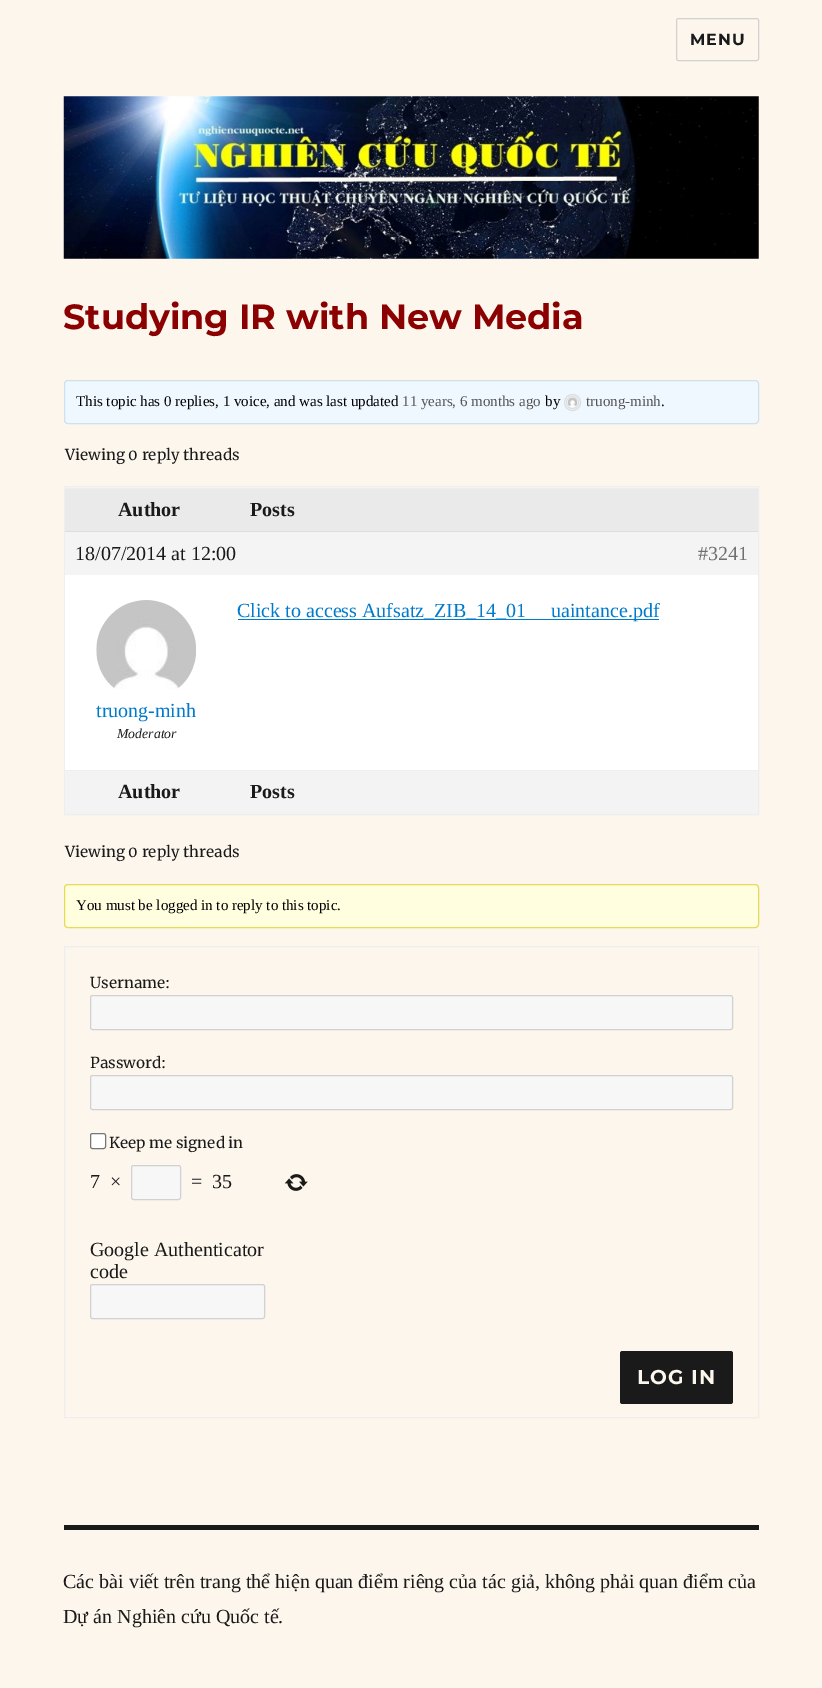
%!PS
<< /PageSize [822 1688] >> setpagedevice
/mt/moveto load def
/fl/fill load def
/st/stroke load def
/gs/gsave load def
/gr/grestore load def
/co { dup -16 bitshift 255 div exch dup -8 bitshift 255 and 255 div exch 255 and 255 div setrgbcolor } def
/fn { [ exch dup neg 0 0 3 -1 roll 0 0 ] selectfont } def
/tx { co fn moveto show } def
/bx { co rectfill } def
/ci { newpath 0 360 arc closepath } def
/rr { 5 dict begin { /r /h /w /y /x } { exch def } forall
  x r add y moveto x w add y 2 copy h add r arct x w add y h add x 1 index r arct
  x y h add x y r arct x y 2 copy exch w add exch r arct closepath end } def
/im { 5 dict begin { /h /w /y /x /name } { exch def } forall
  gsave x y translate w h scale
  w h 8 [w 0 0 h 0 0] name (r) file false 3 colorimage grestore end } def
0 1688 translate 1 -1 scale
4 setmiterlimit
0 0 822 1688 16#FCF6ED bx
16#D1D1D1 co
676.5 18.5 82 42 2 rr st
(media/1.raw) 63 96 696 163 im
16#F0F8FF co
64.5 380.5 694 43 3.5 rr gs fl gr
16#CEE1EF co
st
16#DDDDDD co
572.5 402.5 8 ci st
572.5 402.5 6 ci st
(media/2.raw) 567 397 11 10 im
16#EEEEEE co
64.5 486.5 694 328 rectstroke
65 489 693 42 16#EAEAEA bx
65 488 693 1 16#EEEEEE bx
65 532 693 43 16#F4F4F4 bx
65 531 693 1 16#DDDDDD bx
65 575 693 195 16#FFFFFF bx
238 619 421 1 16#007ACC bx
(media/3.raw) 96 600 100 89 im
65 771 693 43 16#F3F3F3 bx
65 770 693 1 16#EEEEEE bx
16#FFFFE0 co
64.5 884.5 694 43 3.5 rr gs fl gr
16#E6DB55 co
st
16#EEEEEE co
64.5 946.5 694 471 rectstroke
16#F7F7F7 co
90.5 995.5 642 34 2 rr gs fl gr
16#D1D1D1 co
st
16#F7F7F7 co
90.5 1075.5 642 34 2 rr gs fl gr
16#D1D1D1 co
st
16#FFFFFF co
90.5 1133.5 15 15 2 rr gs fl gr
16#767676 co
st
16#F7F7F7 co
131.5 1165.5 49 34 2 rr gs fl gr
16#D1D1D1 co
st
(media/4.raw) 284 1174 24 17 im
16#F7F7F7 co
90.5 1284.5 174 34 2 rr gs fl gr
16#D1D1D1 co
st
16#1A1A1A co
620 1351 113 53 2.5 rr fl
64 1525 695 5 16#1A1A1A bx
/Montserrat-Thin 16 fn
690 45 mt 1 0 (MENU) ashow
(Studying IR with New Media) 63 329 /Montserrat-Thin 35 16#8B0000 tx
(This topic has 0 replies, 1 voice, and was last updated) 76 406 /LiberationSerif-Regular 15 16#000000 tx
(11 years, 6 months ago) 402 406 /LiberationSerif-Regular 15 16#555555 tx
(by) 545 406 /LiberationSerif-Regular 15 16#000000 tx
(truong-minh) 586 406 /LiberationSerif-Regular 15 16#555555 tx
(.) 661 406 /LiberationSerif-Regular 15 16#000000 tx
(Viewing 0 reply threads) 65 460 /Merriweather-Regular 15 16#1A1A1A tx
(Author) 118 516 /LiberationSerif-Bold 20 16#1A1A1A tx
(Posts) 250 516 /LiberationSerif-Bold 20 16#1A1A1A tx
(18/07/2014 at 12:00) 75 560 /LiberationSerif-Regular 20 16#1A1A1A tx
(#3241) 698 560 /LiberationSerif-Regular 20 16#707070 tx
(Click to access Aufsatz_ZIB_14_01) 237 617 /LiberationSerif-Regular 20 16#007ACC tx
(uaintance.pdf) 551 617 /LiberationSerif-Regular 20 16#007ACC tx
(truong-minh) 96 717 /LiberationSerif-Regular 20 16#007ACC tx
(Moderator) 117 738 /LiberationSerif-Italic 13.75 16#1A1A1A tx
(Author) 118 798 /LiberationSerif-Bold 20 16#1A1A1A tx
(Posts) 250 798 /LiberationSerif-Bold 20 16#1A1A1A tx
(Viewing 0 reply threads) 65 857 /Merriweather-Regular 15 16#1A1A1A tx
(You must be logged in to reply to this topic.) 76 910 /LiberationSerif-Regular 15 16#000000 tx
(Username:) 90 988 /Merriweather-Regular 15 16#1A1A1A tx
(Password:) 90 1068 /Merriweather-Regular 15 16#1A1A1A tx
(Keep me signed in) 109 1148 /Merriweather-Regular 15 16#1A1A1A tx
(7) 90 1188 /LiberationSerif-Regular 20 16#1A1A1A tx
(×) 110 1188 /LiberationSerif-Regular 20 16#1A1A1A tx
(=) 191 1188 /LiberationSerif-Regular 20 16#1A1A1A tx
(35) 212 1188 /LiberationSerif-Regular 20 16#1A1A1A tx
(Google Authenticator) 90 1256 /LiberationSerif-Regular 20 16#1A1A1A tx
(code) 90 1278 /LiberationSerif-Regular 20 16#1A1A1A tx
/Montserrat-Thin 20 fn
16#FCF6ED co
637 1384 mt 1 0 (LOG IN) ashow
(Các bài viết trên trang thể hiện quan điểm riêng của tác giả, không phải quan điểm của) 63 1588 /LiberationSerif-Regular 20 16#1A1A1A tx
(Dự án Nghiên cứu Quốc tế.) 63 1623 /LiberationSerif-Regular 20 16#1A1A1A tx
showpage
